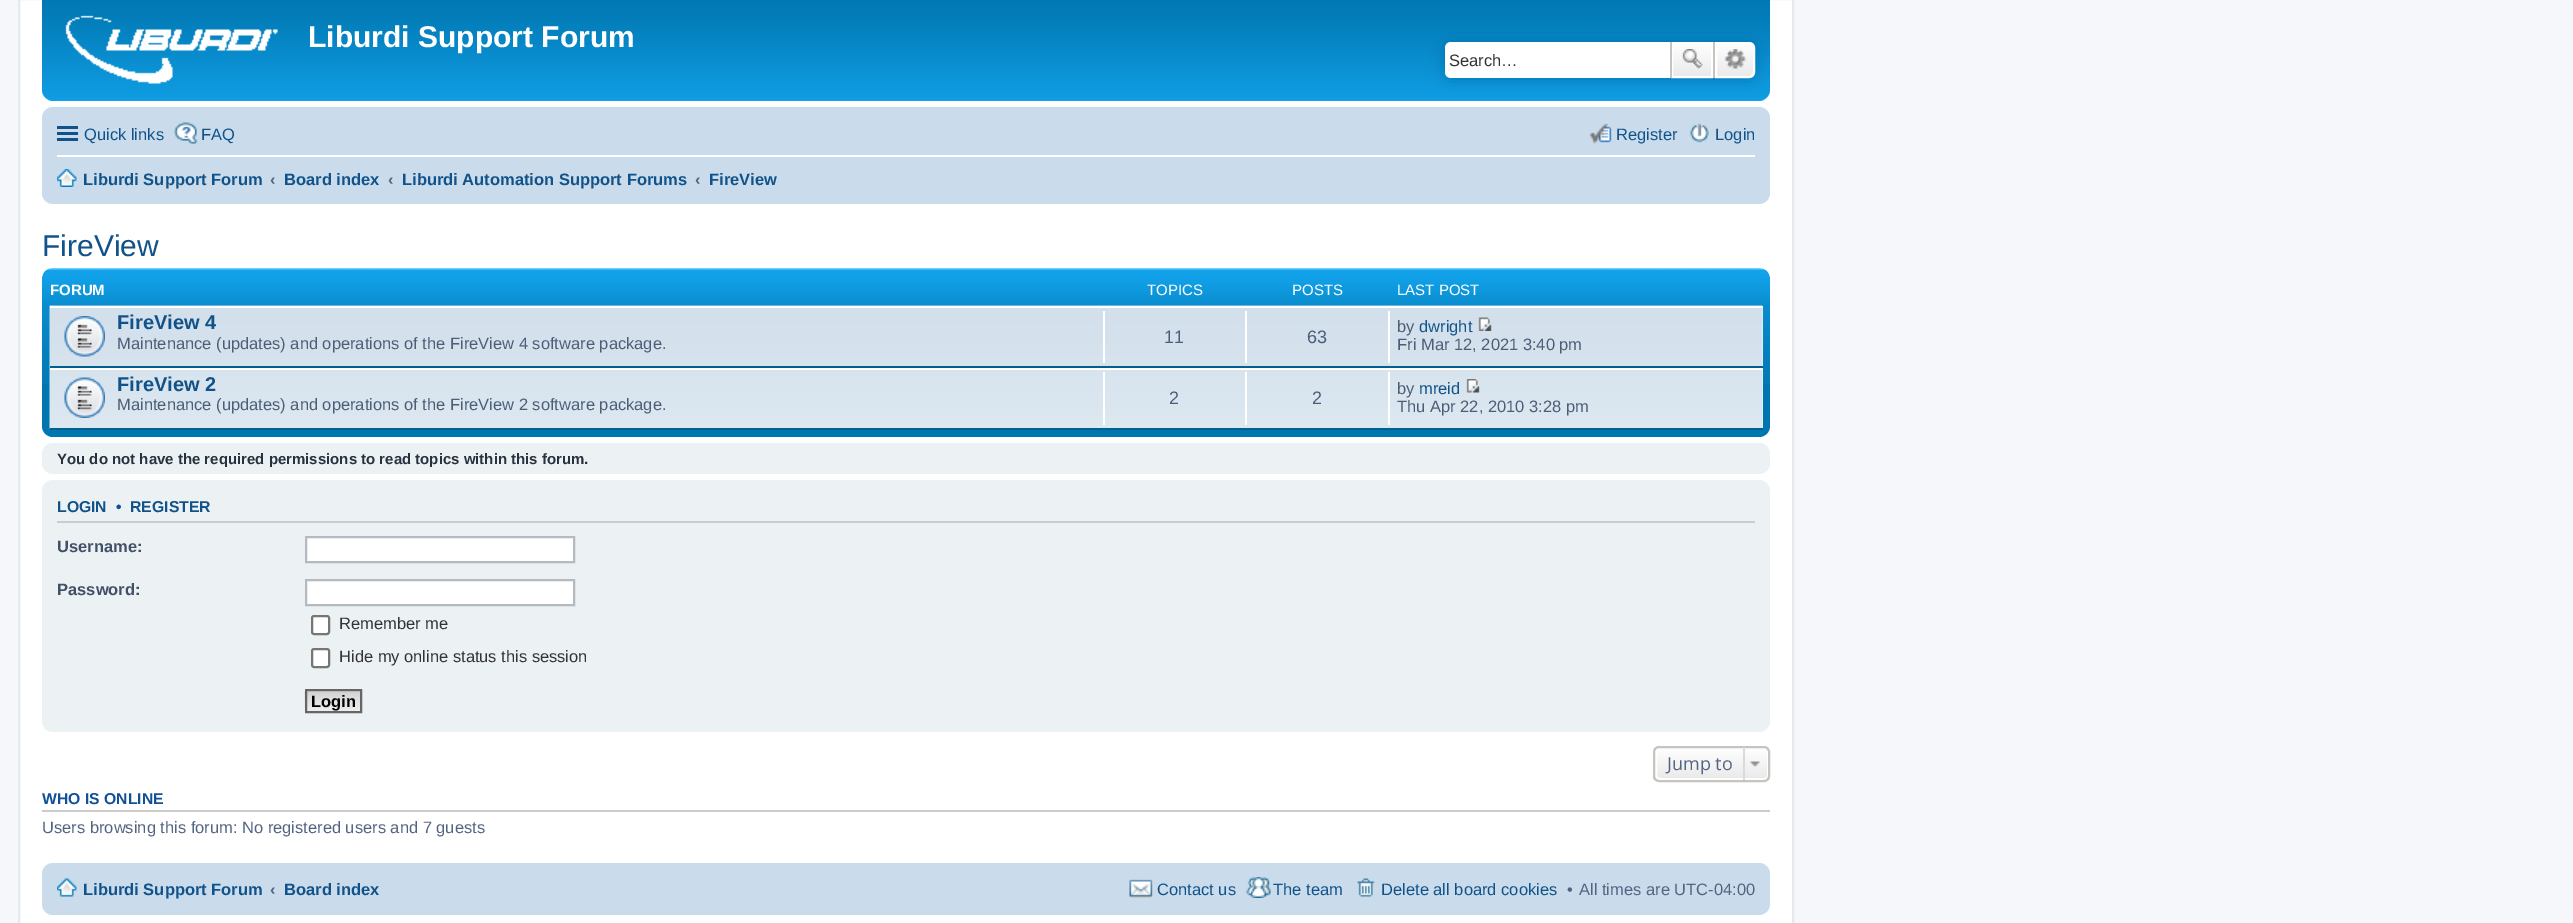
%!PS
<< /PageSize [2573 923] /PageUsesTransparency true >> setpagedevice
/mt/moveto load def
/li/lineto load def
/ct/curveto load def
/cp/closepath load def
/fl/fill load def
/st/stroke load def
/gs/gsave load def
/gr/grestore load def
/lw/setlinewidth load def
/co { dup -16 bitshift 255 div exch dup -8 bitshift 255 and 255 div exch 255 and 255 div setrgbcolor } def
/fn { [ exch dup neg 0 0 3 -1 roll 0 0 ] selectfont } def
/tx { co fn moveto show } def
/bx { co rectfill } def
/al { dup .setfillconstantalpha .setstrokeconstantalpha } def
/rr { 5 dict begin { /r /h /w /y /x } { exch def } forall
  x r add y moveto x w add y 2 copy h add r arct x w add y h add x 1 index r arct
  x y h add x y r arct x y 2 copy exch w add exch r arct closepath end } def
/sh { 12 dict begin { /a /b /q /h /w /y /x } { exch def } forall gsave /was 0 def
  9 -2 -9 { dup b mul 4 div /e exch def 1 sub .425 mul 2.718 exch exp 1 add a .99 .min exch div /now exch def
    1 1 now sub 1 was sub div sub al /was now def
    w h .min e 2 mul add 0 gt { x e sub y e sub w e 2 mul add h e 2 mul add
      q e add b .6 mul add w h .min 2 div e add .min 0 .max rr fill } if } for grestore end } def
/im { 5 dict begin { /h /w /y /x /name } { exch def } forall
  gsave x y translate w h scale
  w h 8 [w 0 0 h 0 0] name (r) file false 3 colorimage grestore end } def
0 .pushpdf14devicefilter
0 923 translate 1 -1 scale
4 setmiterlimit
0 0 2573 923 16#F5F7FA bx
16#FFFFFF co
19 -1 mt 1793 -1 li 1793 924 li 19 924 li cp gs fl gr
16#E6E9ED co
2 lw
st
16#12A3EB co
42 -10 1728 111 11 rr fl
(media/1.raw) 42 0 1728 100 im
(media/2.raw) 65 15 213 69 im
16#0075B0 co
1445 42 310 36 6 7.5 1 sh
16#FFFFFF co
1451 42 mt 1670 42 li 1670 78 li 1451 78 li 1447.5 78 1445 75.5 1445 72 ct 1445 48 li 1445 44.5 1447.5 42 1451 42 ct cp fl
gs 1673 44 mt 1711 44 li 1711 76 li 1673 76 li cp clip newpath
<< /ShadingType 2 /ColorSpace /DeviceRGB /Coords [1692 42 1692 78] /Extend [true true] /Function << /FunctionType 2 /Domain [0 1] /C0 [1 1 1] /C1 [.914 .914 .914] /N 1 >> >> shfill gr
1672 43 40 34 rectstroke
1713 42 2 36 16#C7C3BF bx
1670 42 2 36 16#C7C3BF bx
(media/3.raw) 1682 49 21 20 im
gs 1716 43 mt 1749 43 li 1752 43 1754 45 1754 48 ct 1754 72 li 1754 75 1752 77 1749 77 ct 1716 77 li cp clip newpath
<< /ShadingType 2 /ColorSpace /DeviceRGB /Coords [1735 42 1735 78] /Extend [true true] /Function << /FunctionType 2 /Domain [0 1] /C0 [1 1 1] /C1 [.914 .914 .914] /N 1 >> >> shfill gr
16#FFFFFF co
1716 43 mt 1749 43 li 1752 43 1754 45 1754 48 ct 1754 72 li 1754 75 1752 77 1749 77 ct 1716 77 li cp st
(media/4.raw) 1724 49 23 20 im
16#CADCEB co
42 107 1728 97 11 rr fl
57 126 21 3 16#105289 bx
57 132 21 3 16#105289 bx
57 138 21 3 16#105289 bx
(media/5.raw) 174 122 24 22 im
(media/6.raw) 1589 123 23 21 im
(media/7.raw) 1690 123 19 20 im
57 155 1698 2 16#FFFFFF bx
(media/8.raw) 57 169 20 18 im
16#0076B1 co
42 269 1728 168 11 rr fl
(media/9.raw) 42 268 1728 116 im
1762 308 1 120 16#EEF5F9 bx
(media/10.raw) 49 305 1714 124 im
50 306 1713 2 16#FFFFFF bx
50 366 1713 2 16#00608F bx
(media/11.raw) 64 316 41 41 im
1103 311 2 52 16#FFFFFF bx
1245 311 2 52 16#FFFFFF bx
1388 311 2 52 16#FFFFFF bx
(media/12.raw) 1478 317 14 14 im
50 368 1713 2 16#FFFFFF bx
50 428 1713 2 16#00608F bx
(media/13.raw) 64 377 41 41 im
1103 372 2 53 16#FFFFFF bx
1245 372 2 53 16#FFFFFF bx
1388 372 2 53 16#FFFFFF bx
(media/14.raw) 1466 379 14 14 im
16#ECF1F3 co
42 443 1728 31 11 rr fl
42 480 1728 252 11 rr fl
57 521 1698 2 16#CCCCCC bx
16#FFFFFF co
306 537 mt 574 537 li 574 562 li 306 562 li cp gs fl gr
16#B4BAC0 co
st
16#FFFFFF co
306 580 mt 574 580 li 574 605 li 306 605 li cp gs fl gr
16#B4BAC0 co
st
16#FFFFFF co
312 616 17 18 2 rr gs fl gr
16#767676 co
st
16#FFFFFF co
312 649 17 18 2 rr gs fl gr
16#767676 co
st
(media/15.raw) 304 689 56 23 im
16#666666 co
306 690 55 22 rectstroke
gs
1653 746 117 36 6 rr clip newpath
gs 1653 747 mt 1770 747 li 1770 780 li 1653 780 li cp clip newpath
<< /ShadingType 2 /ColorSpace /DeviceRGB /Coords [1712 747 1712 780] /Extend [true true] /Function << /FunctionType 2 /Domain [0 1] /C0 [1 1 1] /C1 [.914 .914 .914] /N 1 >> >> shfill gr
gr
16#FFFFFF co
1656 748 112 31 4 rr st
16#C7C3BF co
1654 747 115 34 5 rr st
(media/16.raw) 1750 761 10 6 im
1743 747 2 33 16#DADADA bx
42 810 1728 2 16#CCCCCC bx
16#CADCEB co
42 863 1728 52 11 rr fl
(media/17.raw) 57 878 20 19 im
(media/18.raw) 1129 879 24 19 im
(media/19.raw) 1246 877 25 21 im
(media/20.raw) 1357 878 18 19 im
(Liburdi Support Forum) 308 47 /LiberationSans-Bold 30 16#FFFFFF tx
(Search…) 1449 66 /LiberationSans-Regular 16.5 16#333333 tx
(Quick links) 84 140 /LiberationSans-Regular 16.5 16#105289 tx
(FAQ) 201 140 /LiberationSans-Regular 16.5 16#105289 tx
(Register) 1616 140 /LiberationSans-Regular 16.5 16#105289 tx
(Login) 1715 140 /LiberationSans-Regular 16.5 16#105289 tx
(Liburdi Support Forum) 83 185 /LiberationSans-Bold 16.5 16#105289 tx
(‹) 270 185 /LiberationSans-Bold 16.5 16#536482 tx
(Board index) 284 185 /LiberationSans-Bold 16.5 16#105289 tx
(‹) 388 185 /LiberationSans-Bold 16.5 16#536482 tx
(Liburdi Automation Support Forums) 402 185 /LiberationSans-Bold 16.5 16#105289 tx
(‹) 695 185 /LiberationSans-Bold 16.5 16#536482 tx
(FireView) 709 185 /LiberationSans-Bold 16.5 16#105289 tx
(FireView) 42 256 /LiberationSans-Regular 30 16#105289 tx
(FORUM) 50 295 /LiberationSans-Bold 15 16#FFFFFF tx
(TOPICS) 1147 295 /LiberationSans-Regular 15 16#FFFFFF tx
(POSTS) 1292 295 /LiberationSans-Regular 15 16#FFFFFF tx
(LAST POST) 1397 295 /LiberationSans-Regular 15 16#FFFFFF tx
(FireView 4) 117 329 /LiberationSans-Bold 20 16#105289 tx
(Maintenance \(updates\) and operations of the FireView 4 software package.) 117 349 /LiberationSans-Regular 16.5 16#4C5D77 tx
(11) 1164 343 /LiberationSans-Regular 18 16#4C5D77 tx
(63) 1307 343 /LiberationSans-Regular 18 16#4C5D77 tx
(by) 1397 332 /LiberationSans-Regular 16.5 16#4C5D77 tx
(dwright) 1419 332 /LiberationSans-Regular 16.5 16#105289 tx
(Fri Mar 12, 2021 3:40 pm) 1397 350 /LiberationSans-Regular 16.5 16#4C5D77 tx
(FireView 2) 117 391 /LiberationSans-Bold 20 16#105289 tx
(Maintenance \(updates\) and operations of the FireView 2 software package.) 117 410 /LiberationSans-Regular 16.5 16#4C5D77 tx
(2) 1169 404 /LiberationSans-Regular 18 16#4C5D77 tx
(2) 1312 404 /LiberationSans-Regular 18 16#4C5D77 tx
(by) 1397 394 /LiberationSans-Regular 16.5 16#4C5D77 tx
(mreid) 1419 394 /LiberationSans-Regular 16.5 16#105289 tx
(Thu Apr 22, 2010 3:28 pm) 1397 412 /LiberationSans-Regular 16.5 16#4C5D77 tx
(You do not have the required permissions to read topics within this forum.) 57 464 /LiberationSans-Bold 15 16#28313F tx
(LOGIN) 57 512 /LiberationSans-Bold 15.75 16#105289 tx
(•) 116 512 /LiberationSans-Bold 15.75 16#115098 tx
(REGISTER) 130 512 /LiberationSans-Bold 15.75 16#105289 tx
(Username:) 57 552 /LiberationSans-Bold 16.5 16#425067 tx
(Password:) 57 595 /LiberationSans-Bold 16.5 16#425067 tx
(Remember me) 339 629 /LiberationSans-Regular 16.5 16#333333 tx
(Hide my online status this session) 339 662 /LiberationSans-Regular 16.5 16#333333 tx
(Login) 311 707 /LiberationSans-Bold 16.5 16#000000 tx
(Jump to) 1667 770 /OpenSans-Regular 18 16#536482 tx
(WHO IS ONLINE) 42 804 /LiberationSans-Bold 15.75 16#115098 tx
(Users browsing this forum: No registered users and 7 guests) 42 833 /LiberationSans-Regular 16.5 16#536482 tx
(Liburdi Support Forum) 83 895 /LiberationSans-Bold 16.5 16#105289 tx
(‹) 270 895 /LiberationSans-Bold 16.5 16#536482 tx
(Board index) 284 895 /LiberationSans-Bold 16.5 16#105289 tx
(Contact us) 1157 895 /LiberationSans-Regular 16.5 16#105289 tx
(The team) 1273 895 /LiberationSans-Regular 16.5 16#105289 tx
(Delete all board cookies) 1381 895 /LiberationSans-Regular 16.5 16#105289 tx
(•) 1567 895 /LiberationSans-Regular 16.5 16#536482 tx
(All times are UTC-04:00) 1579 895 /LiberationSans-Regular 16.5 16#536482 tx
.poppdf14devicefilter showpage
